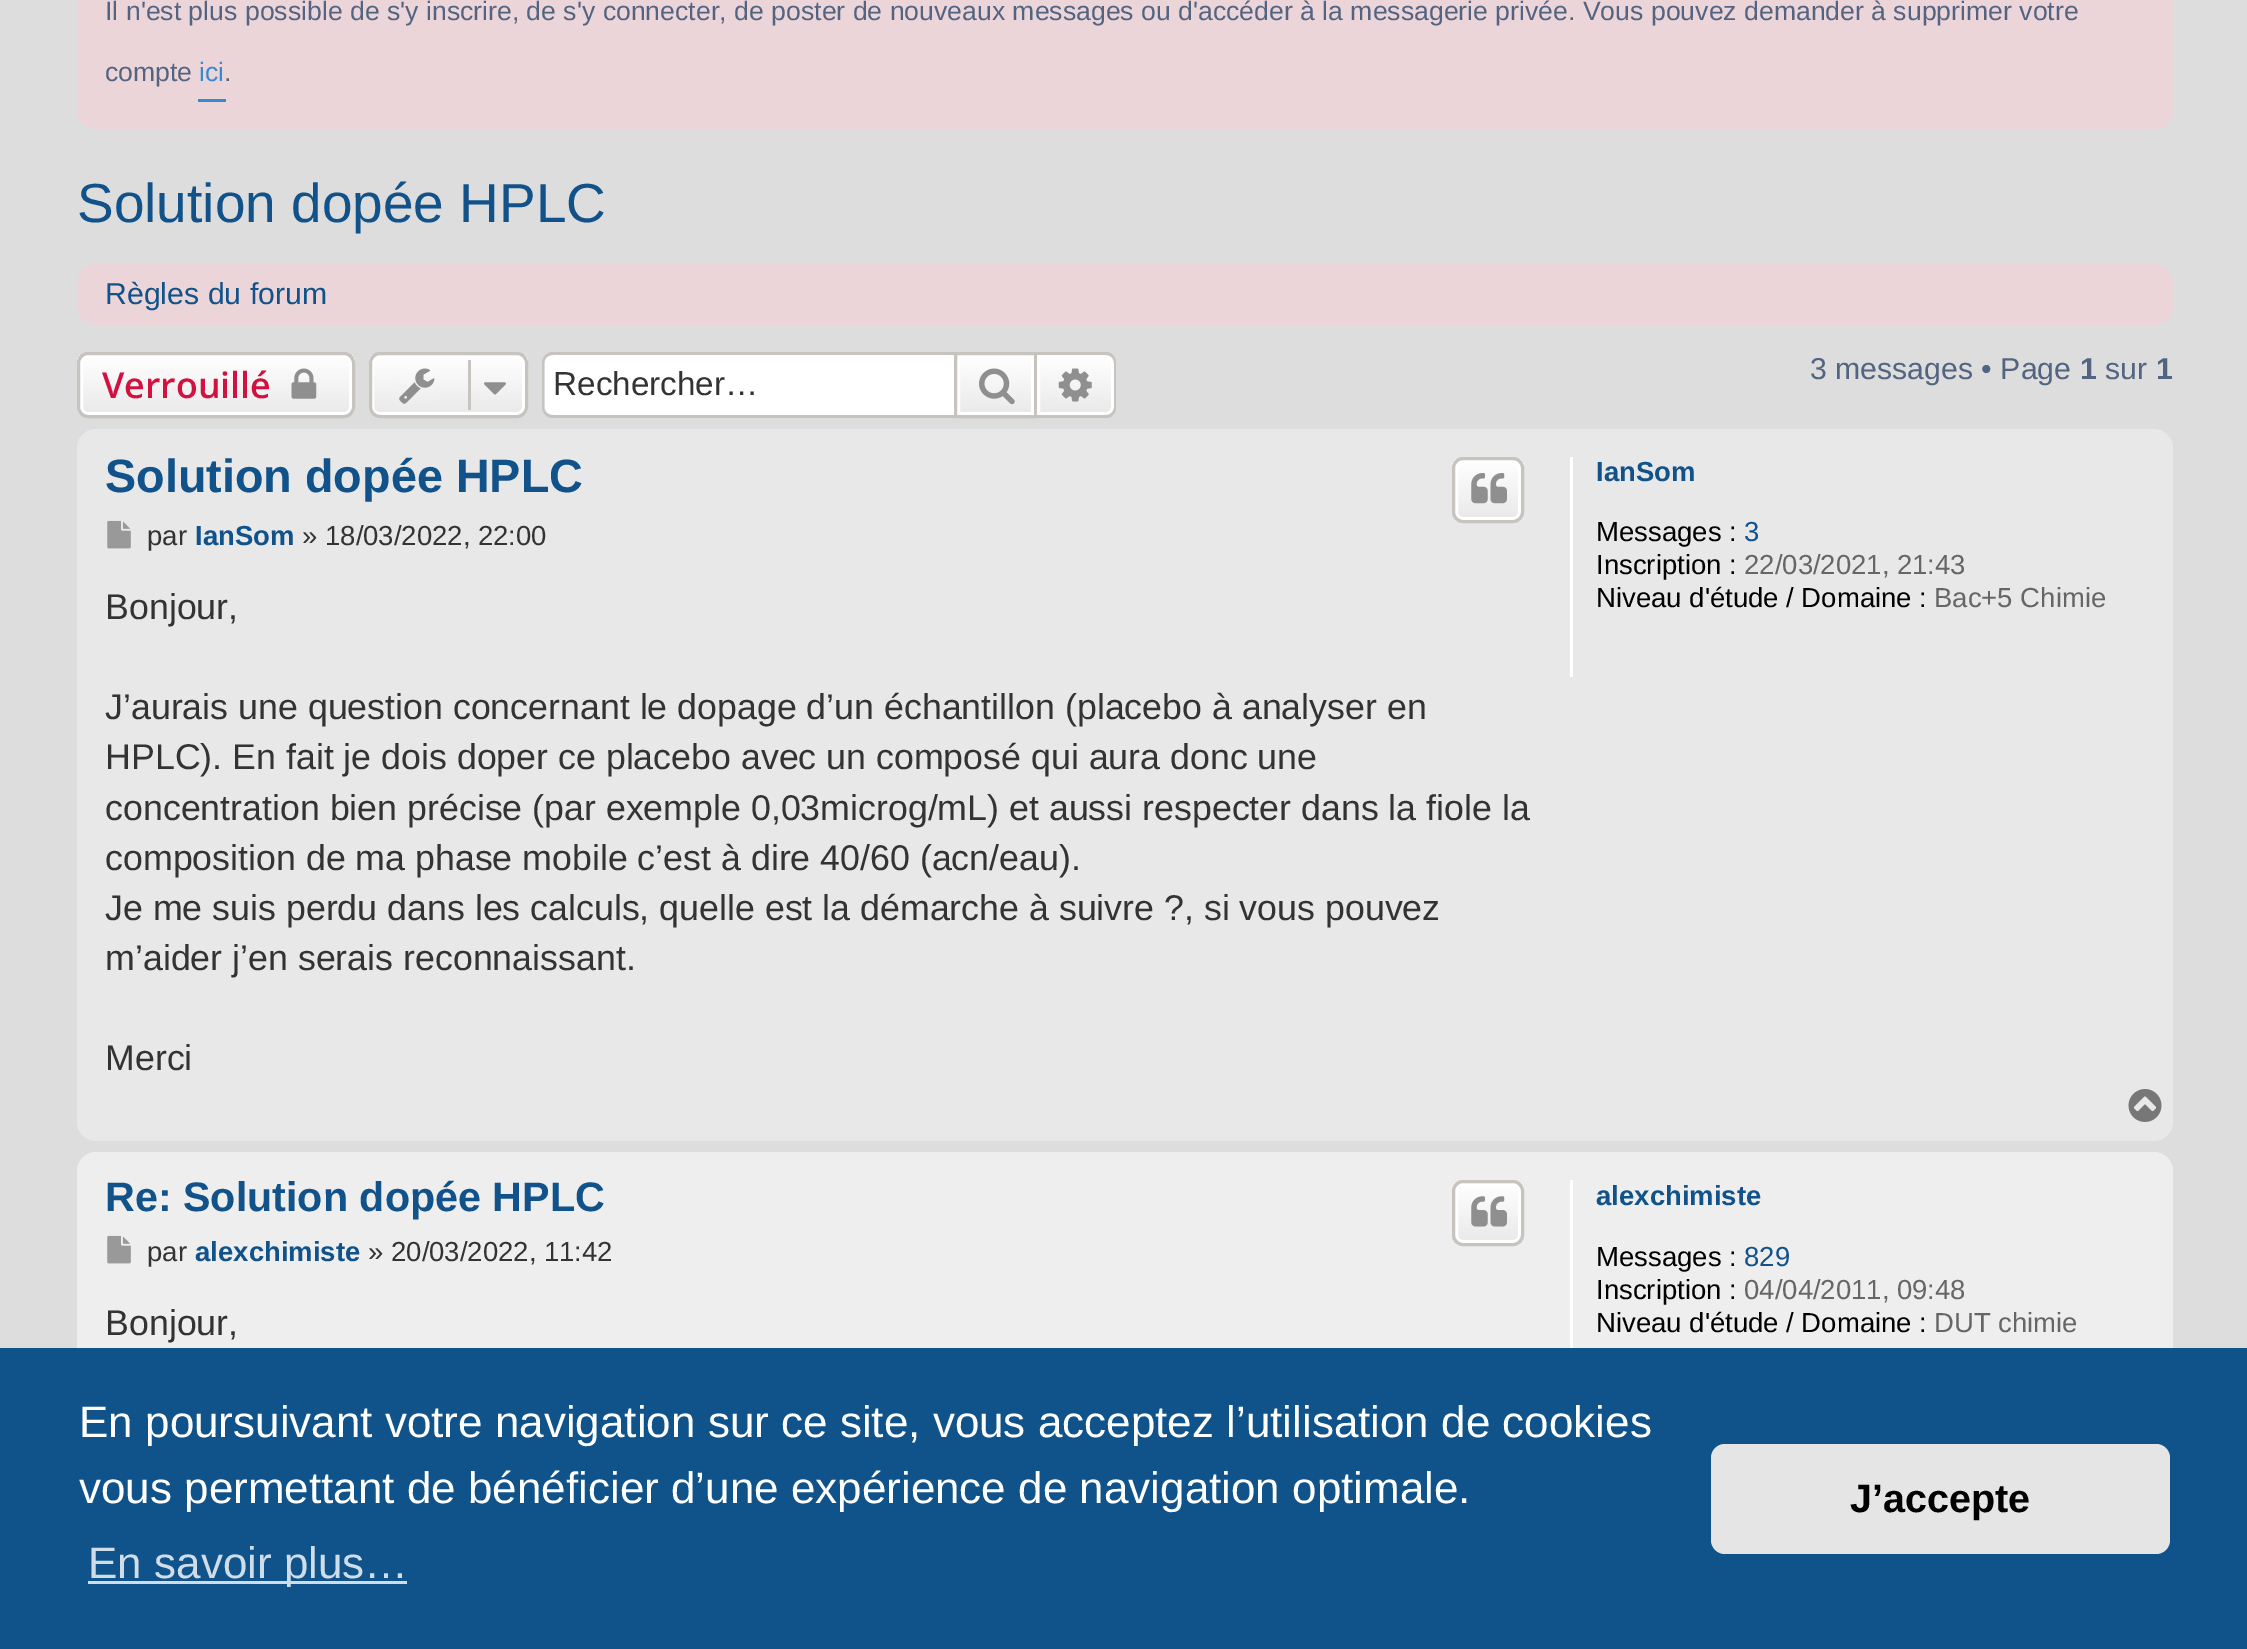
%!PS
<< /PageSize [2247 1649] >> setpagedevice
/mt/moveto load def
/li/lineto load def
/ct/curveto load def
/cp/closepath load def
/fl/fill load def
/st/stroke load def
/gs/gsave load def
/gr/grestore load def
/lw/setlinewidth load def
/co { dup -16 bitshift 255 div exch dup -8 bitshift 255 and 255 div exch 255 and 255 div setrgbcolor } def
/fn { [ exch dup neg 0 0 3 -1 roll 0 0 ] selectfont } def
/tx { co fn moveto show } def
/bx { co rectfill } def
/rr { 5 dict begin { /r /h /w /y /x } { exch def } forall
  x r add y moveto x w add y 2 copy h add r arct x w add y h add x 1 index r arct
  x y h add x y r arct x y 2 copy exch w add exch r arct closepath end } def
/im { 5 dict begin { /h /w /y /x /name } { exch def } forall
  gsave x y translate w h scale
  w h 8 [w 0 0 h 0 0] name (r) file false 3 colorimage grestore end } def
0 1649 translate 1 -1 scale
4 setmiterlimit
0 0 2247 1649 16#DDDDDD bx
16#ECD5D8 co
77 -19 2096 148 19 rr fl
198 99 28 3 16#368AD2 bx
16#ECD5D8 co
77 264 2096 61 19 rr fl
gs
77 352 278 66 11 rr clip newpath
gs 77 355 mt 355 355 li 355 415 li 77 415 li cp clip newpath
<< /ShadingType 2 /ColorSpace /DeviceRGB /Coords [216 355 216 415] /Extend [true true] /Function << /FunctionType 2 /Domain [0 1] /C0 [1 1 1] /C1 [.914 .914 .914] /N 1 >> >> shfill gr
gr
16#FFFFFF co
3 lw
81.5 356.5 269 57 6.5 rr st
16#C7C3BF co
78.5 353.5 275 63 9.5 rr st
(media/1.raw) 291 368 26 31 im
gs
369 352 159 66 11 rr clip newpath
gs 369 355 mt 528 355 li 528 415 li 369 415 li cp clip newpath
<< /ShadingType 2 /ColorSpace /DeviceRGB /Coords [448 355 448 415] /Extend [true true] /Function << /FunctionType 2 /Domain [0 1] /C0 [1 1 1] /C1 [.914 .914 .914] /N 1 >> >> shfill gr
gr
16#FFFFFF co
372.5 356.5 151 57 6.5 rr st
16#C7C3BF co
370.5 353.5 156 63 9.5 rr st
(media/2.raw) 399 368 36 36 im
468 360 3 50 16#C7C3BF bx
(media/3.raw) 484 382 22 13 im
16#FFFFFF co
553 355 mt 954 355 li 954 415 li 553 415 li 548.5 415 545 411.5 545 407 ct 545 363 li 545 358.5 548.5 355 553 355 ct cp fl
16#C7C3BF co
553 352 mt 954 352 li 954 418 li 553 418 li 547 418 542 413 542 407 ct 542 363 li 542 357 547 352 553 352 ct cp 553 355 mt 954 355 li 954 415 li 553 415 li 548 415 544 412 544 407 ct 544 363 li 544 358 548 355 553 355 ct cp eofill
gs 960 358 mt 1031 358 li 1031 412 li 960 412 li cp clip newpath
<< /ShadingType 2 /ColorSpace /DeviceRGB /Coords [996 355 996 415] /Extend [true true] /Function << /FunctionType 2 /Domain [0 1] /C0 [1 1 1] /C1 [.914 .914 .914] /N 1 >> >> shfill gr
16#FFFFFF co
958.5 356.5 74 57 rectstroke
16#C7C3BF co
955.5 353.5 80 63 rectstroke
(media/4.raw) 979 368 36 37 im
gs 1038.5 356.5 mt 1106 356.5 li 1109.5 356.5 1112.5 359.5 1112.5 363 ct 1112.5 407 li 1112.5 410.5 1109.5 413.5 1106 413.5 ct 1038.5 413.5 li cp clip newpath
<< /ShadingType 2 /ColorSpace /DeviceRGB /Coords [1075 355 1075 415] /Extend [true true] /Function << /FunctionType 2 /Domain [0 1] /C0 [1 1 1] /C1 [.914 .914 .914] /N 1 >> >> shfill gr
16#FFFFFF co
1038.5 356.5 mt 1106 356.5 li 1109.5 356.5 1112.5 359.5 1112.5 363 ct 1112.5 407 li 1112.5 410.5 1109.5 413.5 1106 413.5 ct 1038.5 413.5 li cp st
16#C7C3BF co
1037 352 mt 1106 352 li 1112 352 1116 357 1116 363 ct 1116 407 li 1116 413 1112 418 1106 418 ct 1037 418 li cp 1037 355 mt 1106 355 li 1110 355 1114 358 1114 363 ct 1114 407 li 1114 412 1110 415 1106 415 ct 1037 415 li cp eofill
(media/5.raw) 1058 368 34 34 im
16#E8E8E8 co
77 429 2096 712 19 rr fl
gs
1452 457 72 66 11 rr clip newpath
gs 1452 459 mt 1524 459 li 1524 520 li 1452 520 li cp clip newpath
<< /ShadingType 2 /ColorSpace /DeviceRGB /Coords [1488 459 1488 520] /Extend [true true] /Function << /FunctionType 2 /Domain [0 1] /C0 [1 1 1] /C1 [.914 .914 .914] /N 1 >> >> shfill gr
gr
16#FFFFFF co
1456.5 460.5 63 58 6.5 rr st
16#C7C3BF co
1453.5 458.5 69 63 9.5 rr st
(media/6.raw) 1471 473 36 31 im
(media/7.raw) 107 520 24 29 im
1570 457 3 220 16#FFFFFF bx
(media/8.raw) 2128 1089 34 33 im
16#EEEEEE co
77 1152 2096 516 19 rr fl
gs
1452 1180 72 66 11 rr clip newpath
gs 1452 1183 mt 1524 1183 li 1524 1243 li 1452 1243 li cp clip newpath
<< /ShadingType 2 /ColorSpace /DeviceRGB /Coords [1488 1183 1488 1243] /Extend [true true] /Function << /FunctionType 2 /Domain [0 1] /C0 [1 1 1] /C1 [.914 .914 .914] /N 1 >> >> shfill gr
gr
16#FFFFFF co
1456.5 1184.5 63 57 6.5 rr st
16#C7C3BF co
1453.5 1181.5 69 63 9.5 rr st
(media/9.raw) 1471 1196 36 31 im
(media/10.raw) 107 1235 24 29 im
1570 1180 3 168 16#FFFFFF bx
0 1348 2247 301 16#0F538A bx
88 1581 319 3 16#CFDDE8 bx
16#E5E5E5 co
1711 1444 459 110 14 rr fl
(Il n'est plus possible de s'y inscrire, de s'y connecter, de poster de nouveaux messages ou d'accéder à la messagerie privée. Vous pouvez demander à supprimer votre) 105 20 /LiberationSans-Regular 26.62 16#536482 tx
(compte) 105 81 /LiberationSans-Regular 26.62 16#536482 tx
(ici) 199 81 /LiberationSans-Regular 26.62 16#368AD2 tx
(.) 224 81 /LiberationSans-Regular 26.62 16#536482 tx
(Solution dopée HPLC) 77 222 /LiberationSans-Regular 55 16#105289 tx
(Règles du forum) 105 304 /LiberationSans-Regular 30.25 16#105289 tx
(Verrouillé) 102 398 /OpenSans-SemiBold 35.75 16#D31141 tx
(Rechercher…) 553 395 /LiberationSans-Regular 33.25 16#333333 tx
(3 messages • Page) 1810 379 /LiberationSans-Regular 30.25 16#536482 tx
(1) 2080 379 /LiberationSans-Bold 30.25 16#536482 tx
(sur) 2105 379 /LiberationSans-Regular 30.25 16#536482 tx
(1) 2156 379 /LiberationSans-Bold 30.25 16#536482 tx
(Solution dopée HPLC) 105 492 /LiberationSans-Bold 46.75 16#105289 tx
(par) 147 545 /LiberationSans-Regular 27.5 16#333333 tx
(IanSom) 195 545 /LiberationSans-Bold 27.5 16#105289 tx
(» 18/03/2022, 22:00) 302 545 /LiberationSans-Regular 27.5 16#333333 tx
(Bonjour,) 105 619 /LiberationSans-Regular 35.75 16#333333 tx
(J’aurais une question concernant le dopage d’un échantillon \(placebo à analyser en) 105 719 /LiberationSans-Regular 35.75 16#333333 tx
(HPLC\). En fait je dois doper ce placebo avec un composé qui aura donc une) 105 769 /LiberationSans-Regular 35.75 16#333333 tx
(concentration bien précise \(par exemple 0,03microg/mL\) et aussi respecter dans la fiole la) 105 820 /LiberationSans-Regular 35.75 16#333333 tx
(composition de ma phase mobile c’est à dire 40/60 \(acn/eau\).) 105 870 /LiberationSans-Regular 35.75 16#333333 tx
(Je me suis perdu dans les calculs, quelle est la démarche à suivre ?, si vous pouvez) 105 920 /LiberationSans-Regular 35.75 16#333333 tx
(m’aider j’en serais reconnaissant.) 105 970 /LiberationSans-Regular 35.75 16#333333 tx
(Merci) 105 1070 /LiberationSans-Regular 35.75 16#333333 tx
(IanSom) 1596 481 /LiberationSans-Bold 27.5 16#105289 tx
(Messages :) 1596 541 /LiberationSans-Regular 27.5 16#000000 tx
(3) 1744 541 /LiberationSans-Regular 27.5 16#105289 tx
(Inscription :) 1596 574 /LiberationSans-Regular 27.5 16#000000 tx
(22/03/2021, 21:43) 1744 574 /LiberationSans-Regular 27.5 16#666666 tx
(Niveau d'étude / Domaine :) 1596 607 /LiberationSans-Regular 27.5 16#000000 tx
(Bac+5 Chimie) 1934 607 /LiberationSans-Regular 27.5 16#666666 tx
(Re: Solution dopée HPLC) 105 1211 /LiberationSans-Bold 41.25 16#105289 tx
(par) 147 1261 /LiberationSans-Regular 27.5 16#333333 tx
(alexchimiste) 195 1261 /LiberationSans-Bold 27.5 16#105289 tx
(» 20/03/2022, 11:42) 368 1261 /LiberationSans-Regular 27.5 16#333333 tx
(Bonjour,) 105 1335 /LiberationSans-Regular 35.75 16#333333 tx
(alexchimiste) 1596 1205 /LiberationSans-Bold 27.5 16#105289 tx
(Messages :) 1596 1266 /LiberationSans-Regular 27.5 16#000000 tx
(829) 1744 1266 /LiberationSans-Regular 27.5 16#105289 tx
(Inscription :) 1596 1299 /LiberationSans-Regular 27.5 16#000000 tx
(04/04/2011, 09:48) 1744 1299 /LiberationSans-Regular 27.5 16#666666 tx
(Niveau d'étude / Domaine :) 1596 1332 /LiberationSans-Regular 27.5 16#000000 tx
(DUT chimie) 1934 1332 /LiberationSans-Regular 27.5 16#666666 tx
(En poursuivant votre navigation sur ce site, vous acceptez l’utilisation de cookies) 79 1437 /LiberationSans-Regular 44 16#FFFFFF tx
(vous permettant de bénéficier d’une expérience de navigation optimale.) 79 1503 /LiberationSans-Regular 44 16#FFFFFF tx
(En savoir plus…) 88 1578 /LiberationSans-Regular 44 16#CFDDE8 tx
(J’accepte) 1850 1512 /LiberationSans-Bold 39.5 16#000000 tx
showpage
